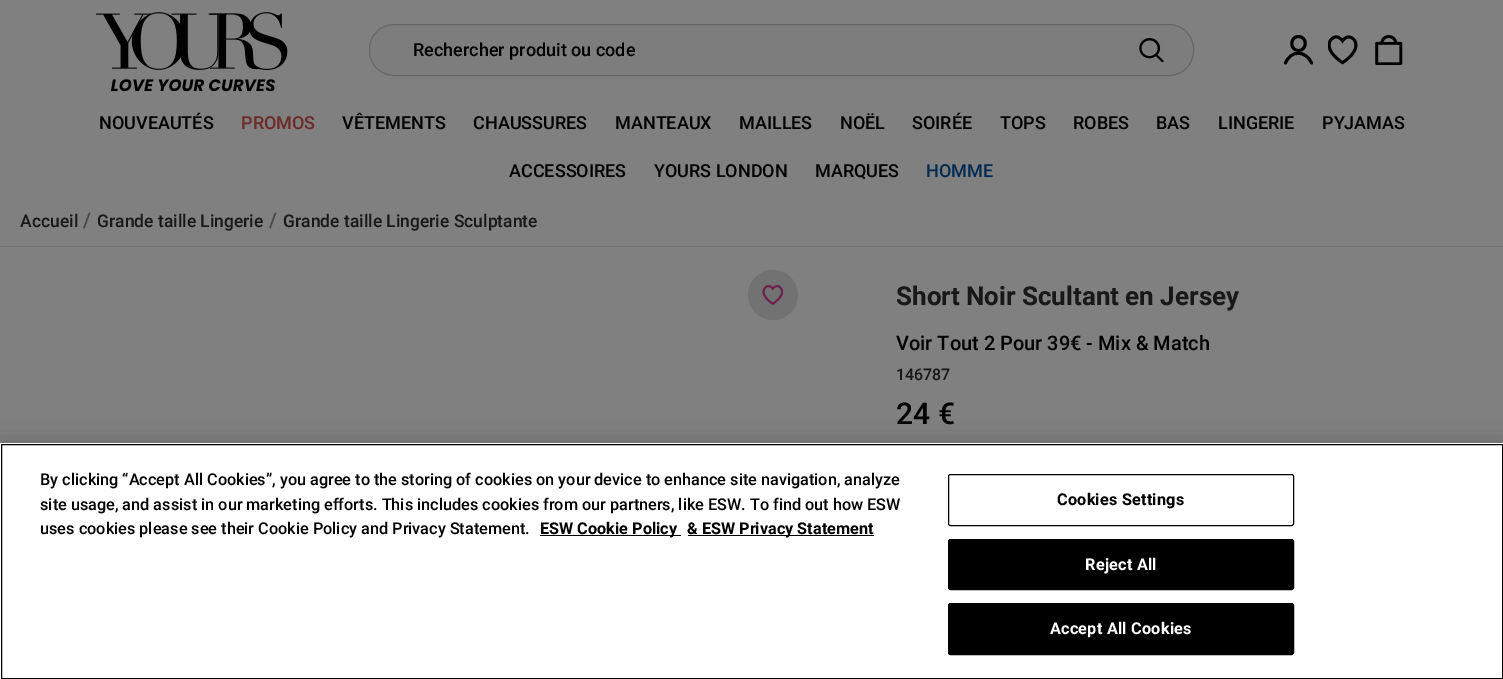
%!PS
<< /PageSize [1503 679] /PageUsesTransparency true >> setpagedevice
/mt/moveto load def
/ct/curveto load def
/cp/closepath load def
/fl/fill load def
/st/stroke load def
/gs/gsave load def
/gr/grestore load def
/lw/setlinewidth load def
/co { dup -16 bitshift 255 div exch dup -8 bitshift 255 and 255 div exch 255 and 255 div setrgbcolor } def
/fn { [ exch dup neg 0 0 3 -1 roll 0 0 ] selectfont } def
/tx { co fn moveto show } def
/bx { co rectfill } def
/al { dup .setfillconstantalpha .setstrokeconstantalpha } def
/ci { newpath 0 360 arc closepath } def
/rr { 5 dict begin { /r /h /w /y /x } { exch def } forall
  x r add y moveto x w add y 2 copy h add r arct x w add y h add x 1 index r arct
  x y h add x y r arct x y 2 copy exch w add exch r arct closepath end } def
/sh { 12 dict begin { /a /b /q /h /w /y /x } { exch def } forall gsave /was 0 def
  9 -2 -9 { dup b mul 4 div /e exch def 1 sub .425 mul 2.718 exch exp 1 add a .99 .min exch div /now exch def
    1 1 now sub 1 was sub div sub al /was now def
    w h .min e 2 mul add 0 gt { x e sub y e sub w e 2 mul add h e 2 mul add
      q e add b .6 mul add w h .min 2 div e add .min 0 .max rr fill } if } for grestore end } def
/im { 5 dict begin { /h /w /y /x /name } { exch def } forall
  gsave x y translate w h scale
  w h 8 [w 0 0 h 0 0] name (r) file false 3 colorimage grestore end } def
0 .pushpdf14devicefilter
0 679 translate 1 -1 scale
4 setmiterlimit
0 0 1503 679 16#808080 bx
(media/1.raw) 96 12 192 80 im
16#7D7D7D co
369.5 24.5 824 51 24.5 rr gs fl gr
16#666666 co
st
(media/2.raw) 1139 38 25 25 im
16#000000 co
2.9 lw
1 setlinecap
1285.5 63 mt 1290.5 50 1306 50 1311.5 63 ct st
0 setlinecap
1298.5 50.5 mt 1307.5 50.5 1307.5 36.5 1298.5 36.5 ct 1289.5 36.5 1289.5 50.5 1298.5 50.5 ct cp st
(media/3.raw) 1328 35 30 30 im
(media/4.raw) 1375 35 28 30 im
0 246 1503 1 16#727272 bx
773 295 25 ci fl
(media/5.raw) 762 285 21 20 im
16#000000 co
0 443 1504 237 0 11 .2 sh
0 443 1503 236 16#FFFFFF bx
16#000000 co
1 lw
1.5 444.5 1501 234 rectstroke
540 535 141 1 16#000000 bx
688 535 186 1 16#000000 bx
948.5 474.5 345 51 2 rr st
948.5 539.5 345 50 2 rr gs fl gr
st
948.5 603.5 345 51 2 rr gs fl gr
st
(Rechercher produit ou code) 413 56 /Roboto-Medium 18 16#000000 tx
(NOUVEAUTÉS) 99 129 /Roboto-Medium 18 16#000000 tx
(PROMOS) 241 129 /Roboto-Medium 18 16#6D2A28 tx
(VÊTEMENTS) 342 129 /Roboto-Medium 18 16#000000 tx
(CHAUSSURES) 473 129 /Roboto-Medium 18 16#000000 tx
(MANTEAUX) 615 129 /Roboto-Medium 18 16#000000 tx
(MAILLES) 739 129 /Roboto-Medium 18 16#000000 tx
(NOËL) 840 129 /Roboto-Medium 18 16#000000 tx
(SOIRÉE) 912 129 /Roboto-Medium 18 16#000000 tx
(TOPS) 1000 129 /Roboto-Medium 18 16#000000 tx
(ROBES) 1073 129 /Roboto-Medium 18 16#000000 tx
(BAS) 1156 129 /Roboto-Medium 18 16#000000 tx
(LINGERIE) 1218 129 /Roboto-Medium 18 16#000000 tx
(PYJAMAS) 1322 129 /Roboto-Medium 18 16#000000 tx
(ACCESSOIRES) 509 177 /Roboto-Medium 18 16#000000 tx
(YOURS LONDON) 654 177 /Roboto-Medium 18 16#000000 tx
(MARQUES) 815 177 /Roboto-Medium 18 16#000000 tx
(HOMME) 926 177 /Roboto-Medium 18 16#002A51 tx
(Accueil) 20 227 /Roboto-Medium 17.5 16#181818 tx
(/) 83 227 /Roboto-Medium 20 16#464646 tx
(Grande taille Lingerie) 97 227 /Roboto-Medium 17.5 16#181818 tx
(/) 269 227 /Roboto-Medium 20 16#464646 tx
(Grande taille Lingerie Sculptante) 283 227 /Roboto-Medium 17.5 16#181818 tx
(Short Noir Scultant en Jersey) 896 305 /Roboto-Bold 26 16#181818 tx
(Voir Tout 2 Pour 39€ - Mix & Match) 896 350 /Roboto-Medium 20 16#000000 tx
(146787) 896 380 /Roboto-Medium 16 16#181818 tx
(24 €) 896 424 /Roboto-Medium 30 16#000000 tx
(By clicking “Accept All Cookies”, you agree to the storing of cookies on your device to enhance site navigation, analyze) 40 485 /Roboto-Medium 16.25 16#000000 tx
(site usage, and assist in our marketing efforts. This includes cookies from our partners, like ESW. To find out how ESW) 40 510 /Roboto-Medium 16.25 16#000000 tx
(uses cookies please see their Cookie Policy and Privacy Statement.) 40 534 /Roboto-Medium 16.25 16#000000 tx
(ESW Cookie Policy) 540 534 /Roboto-Bold 16.25 16#000000 tx
(& ESW Privacy Statement) 687 534 /Roboto-Bold 16.25 16#000000 tx
1057 505 mt .2 0 (Cookies Settings) ashow
16#FFFFFF co
1085 570 mt .2 0 (Reject All) ashow
1050 634 mt .2 0 (Accept All Cookies) ashow
.poppdf14devicefilter showpage
